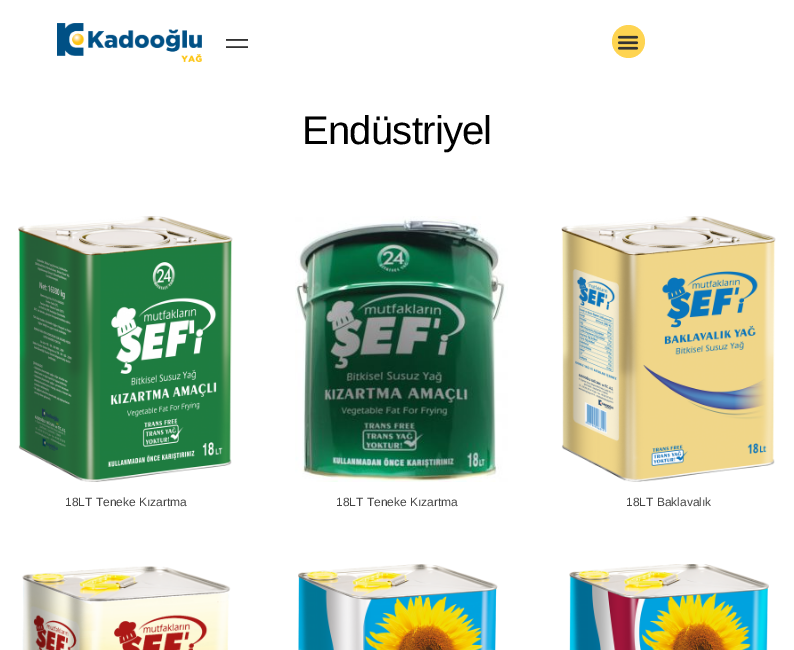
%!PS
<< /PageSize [794 650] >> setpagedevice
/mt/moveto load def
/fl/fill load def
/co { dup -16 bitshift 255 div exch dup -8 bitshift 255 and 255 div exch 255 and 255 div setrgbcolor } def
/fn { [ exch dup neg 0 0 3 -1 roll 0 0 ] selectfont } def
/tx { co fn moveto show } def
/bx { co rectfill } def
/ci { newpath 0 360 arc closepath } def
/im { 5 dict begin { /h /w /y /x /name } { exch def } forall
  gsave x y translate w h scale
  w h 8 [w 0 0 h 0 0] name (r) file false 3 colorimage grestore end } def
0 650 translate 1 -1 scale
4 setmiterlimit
0 0 794 650 16#FFFFFF bx
(media/1.raw) 57 23 145 39 im
(media/2.raw) 226 39 22 9 im
16#FED451 co
628.5 41.5 16.5 ci fl
(media/3.raw) 617 35 22 15 im
(media/4.raw) 18 216 215 266 im
(media/5.raw) 295 216 213 266 im
(media/6.raw) 561 216 215 266 im
(media/7.raw) 22 566 209 84 im
(media/8.raw) 298 564 200 86 im
(media/9.raw) 569 564 200 86 im
/LiberationSans-Regular 40 fn
16#000000 co
302 144 mt -.75 0 (Endüstriyel) ashow
(18LT Teneke Kızartma) 65 506 /LiberationSans-Regular 12 16#444444 tx
(18LT Teneke Kızartma) 336 506 /LiberationSans-Regular 12 16#444444 tx
(18LT Baklavalık) 626 506 /LiberationSans-Regular 12 16#444444 tx
showpage
